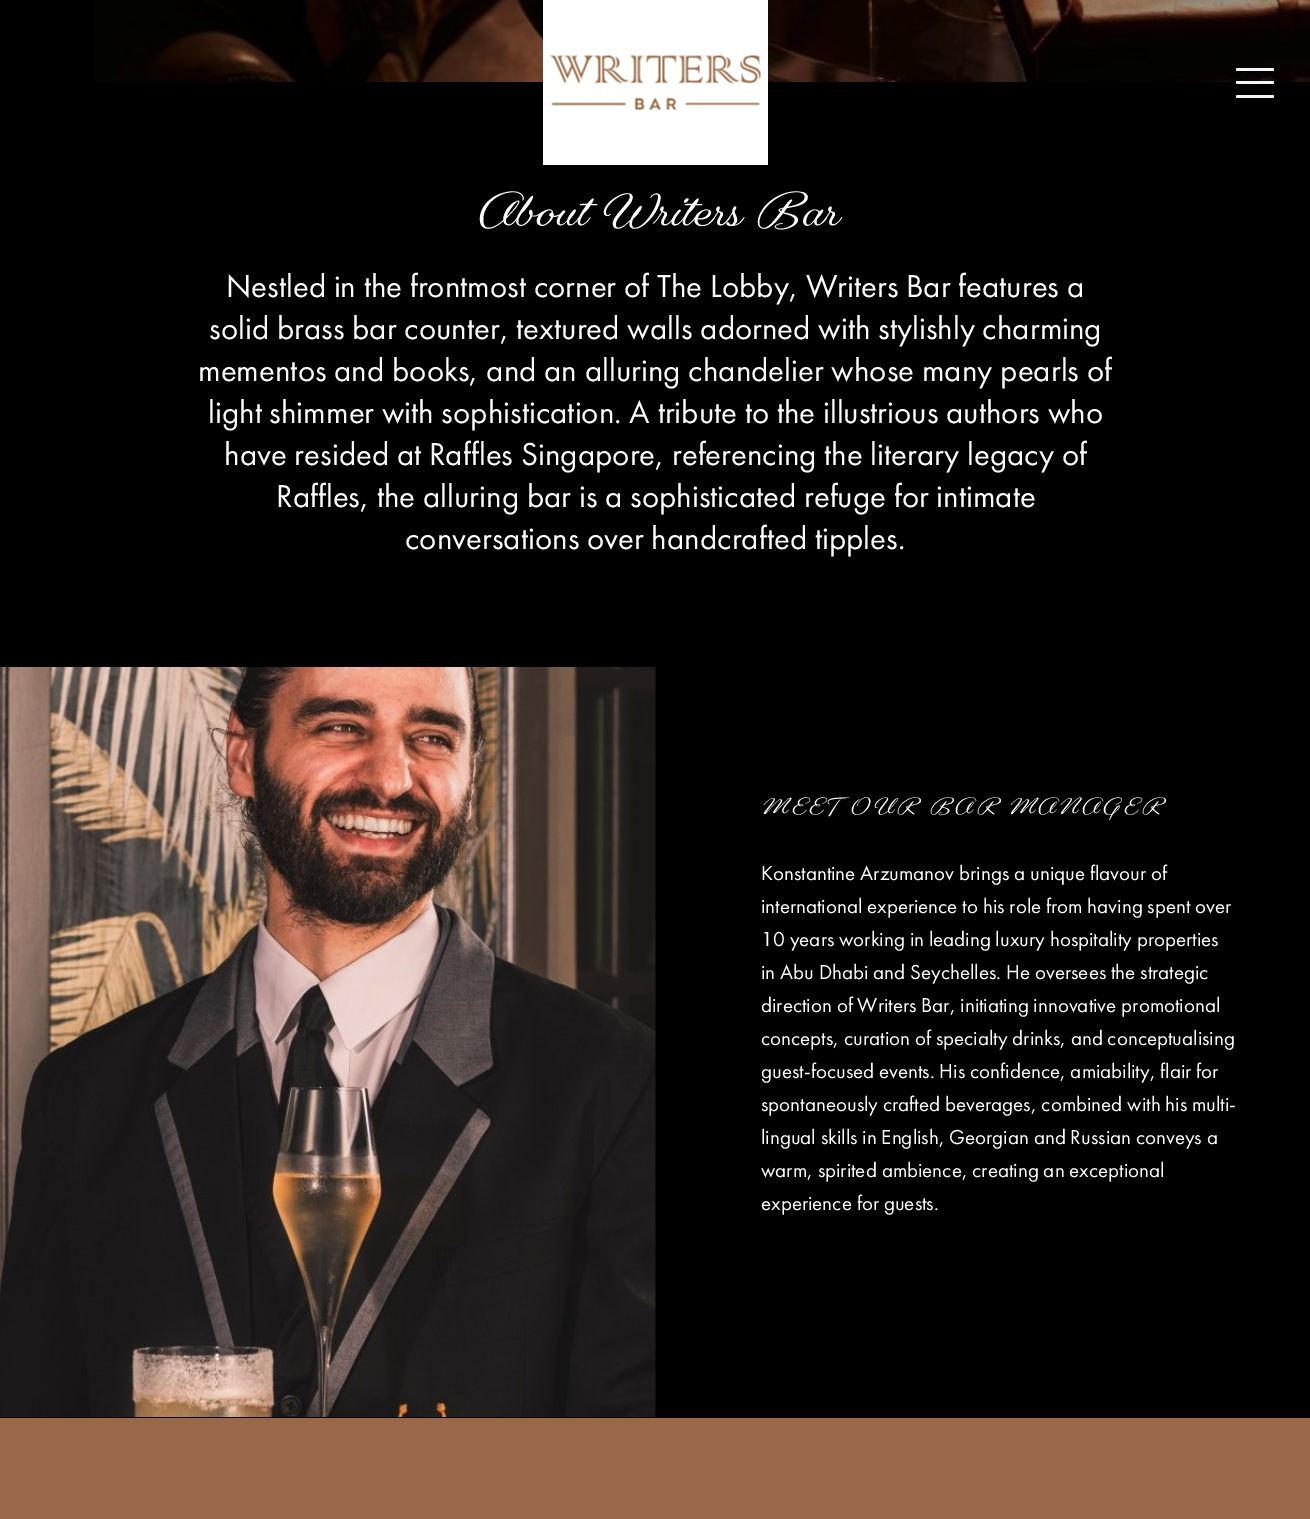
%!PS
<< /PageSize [1310 1519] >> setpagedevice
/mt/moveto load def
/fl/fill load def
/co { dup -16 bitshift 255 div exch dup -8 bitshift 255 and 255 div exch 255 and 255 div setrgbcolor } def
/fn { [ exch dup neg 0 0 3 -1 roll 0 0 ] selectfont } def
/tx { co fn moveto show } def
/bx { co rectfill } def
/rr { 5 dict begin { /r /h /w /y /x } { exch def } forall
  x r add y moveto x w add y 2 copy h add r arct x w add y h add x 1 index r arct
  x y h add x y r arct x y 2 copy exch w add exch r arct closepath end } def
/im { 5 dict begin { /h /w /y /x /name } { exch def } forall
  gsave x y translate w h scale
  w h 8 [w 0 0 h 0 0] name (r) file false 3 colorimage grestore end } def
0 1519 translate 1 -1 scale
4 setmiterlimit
0 0 1310 1519 16#000000 bx
(media/1.raw) 94 0 1216 82 im
543 0 225 165 16#FFFFFF bx
(media/2.raw) 550 55 211 55 im
16#F3F5F6 co
1236 68 38 3 1.5 rr fl
1236 81 38 3 1.5 rr fl
1236 95 38 3 1.5 rr fl
(media/3.raw) 0 667 656 750 im
0 1418 1310 101 16#996848 bx
(About Writers Bar) 474 225 /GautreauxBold-Bold 45 16#FFFFFF tx
(Nestled in the frontmost corner of The Lobby, Writers Bar features a) 226 297 /FuturaPT-Regular 33 16#FFFFFF tx
(solid brass bar counter, textured walls adorned with stylishly charming) 209 339 /FuturaPT-Regular 33 16#FFFFFF tx
(mementos and books, and an alluring chandelier whose many pearls of) 198 381 /FuturaPT-Regular 33 16#FFFFFF tx
(light shimmer with sophistication. A tribute to the illustrious authors who) 208 423 /FuturaPT-Regular 33 16#FFFFFF tx
(have resided at Raffles Singapore, referencing the literary legacy of) 224 465 /FuturaPT-Regular 33 16#FFFFFF tx
(Raffles, the alluring bar is a sophisticated refuge for intimate) 276 507 /FuturaPT-Regular 33 16#FFFFFF tx
(conversations over handcrafted tipples.) 405 549 /FuturaPT-Regular 33 16#FFFFFF tx
/GautreauxBold-Bold 21 fn
761 813 mt 3 0 (MEET OUR BAR MANAGER) ashow
(Konstantine Arzumanov brings a unique flavour of) 761 880 /FuturaPT-Regular 21 16#FFFFFF tx
(international experience to his role from having spent over) 761 913 /FuturaPT-Regular 21 16#FFFFFF tx
(10 years working in leading luxury hospitality properties) 761 946 /FuturaPT-Regular 21 16#FFFFFF tx
(in Abu Dhabi and Seychelles. He oversees the strategic) 761 979 /FuturaPT-Regular 21 16#FFFFFF tx
(direction of Writers Bar, initiating innovative promotional) 761 1012 /FuturaPT-Regular 21 16#FFFFFF tx
(concepts, curation of specialty drinks, and conceptualising) 761 1045 /FuturaPT-Regular 21 16#FFFFFF tx
(guest-focused events. His confidence, amiability, flair for) 761 1078 /FuturaPT-Regular 21 16#FFFFFF tx
(spontaneously crafted beverages, combined with his multi-) 761 1111 /FuturaPT-Regular 21 16#FFFFFF tx
(lingual skills in English, Georgian and Russian conveys a) 761 1144 /FuturaPT-Regular 21 16#FFFFFF tx
(warm, spirited ambience, creating an exceptional) 761 1177 /FuturaPT-Regular 21 16#FFFFFF tx
(experience for guests.) 761 1210 /FuturaPT-Regular 21 16#FFFFFF tx
showpage
